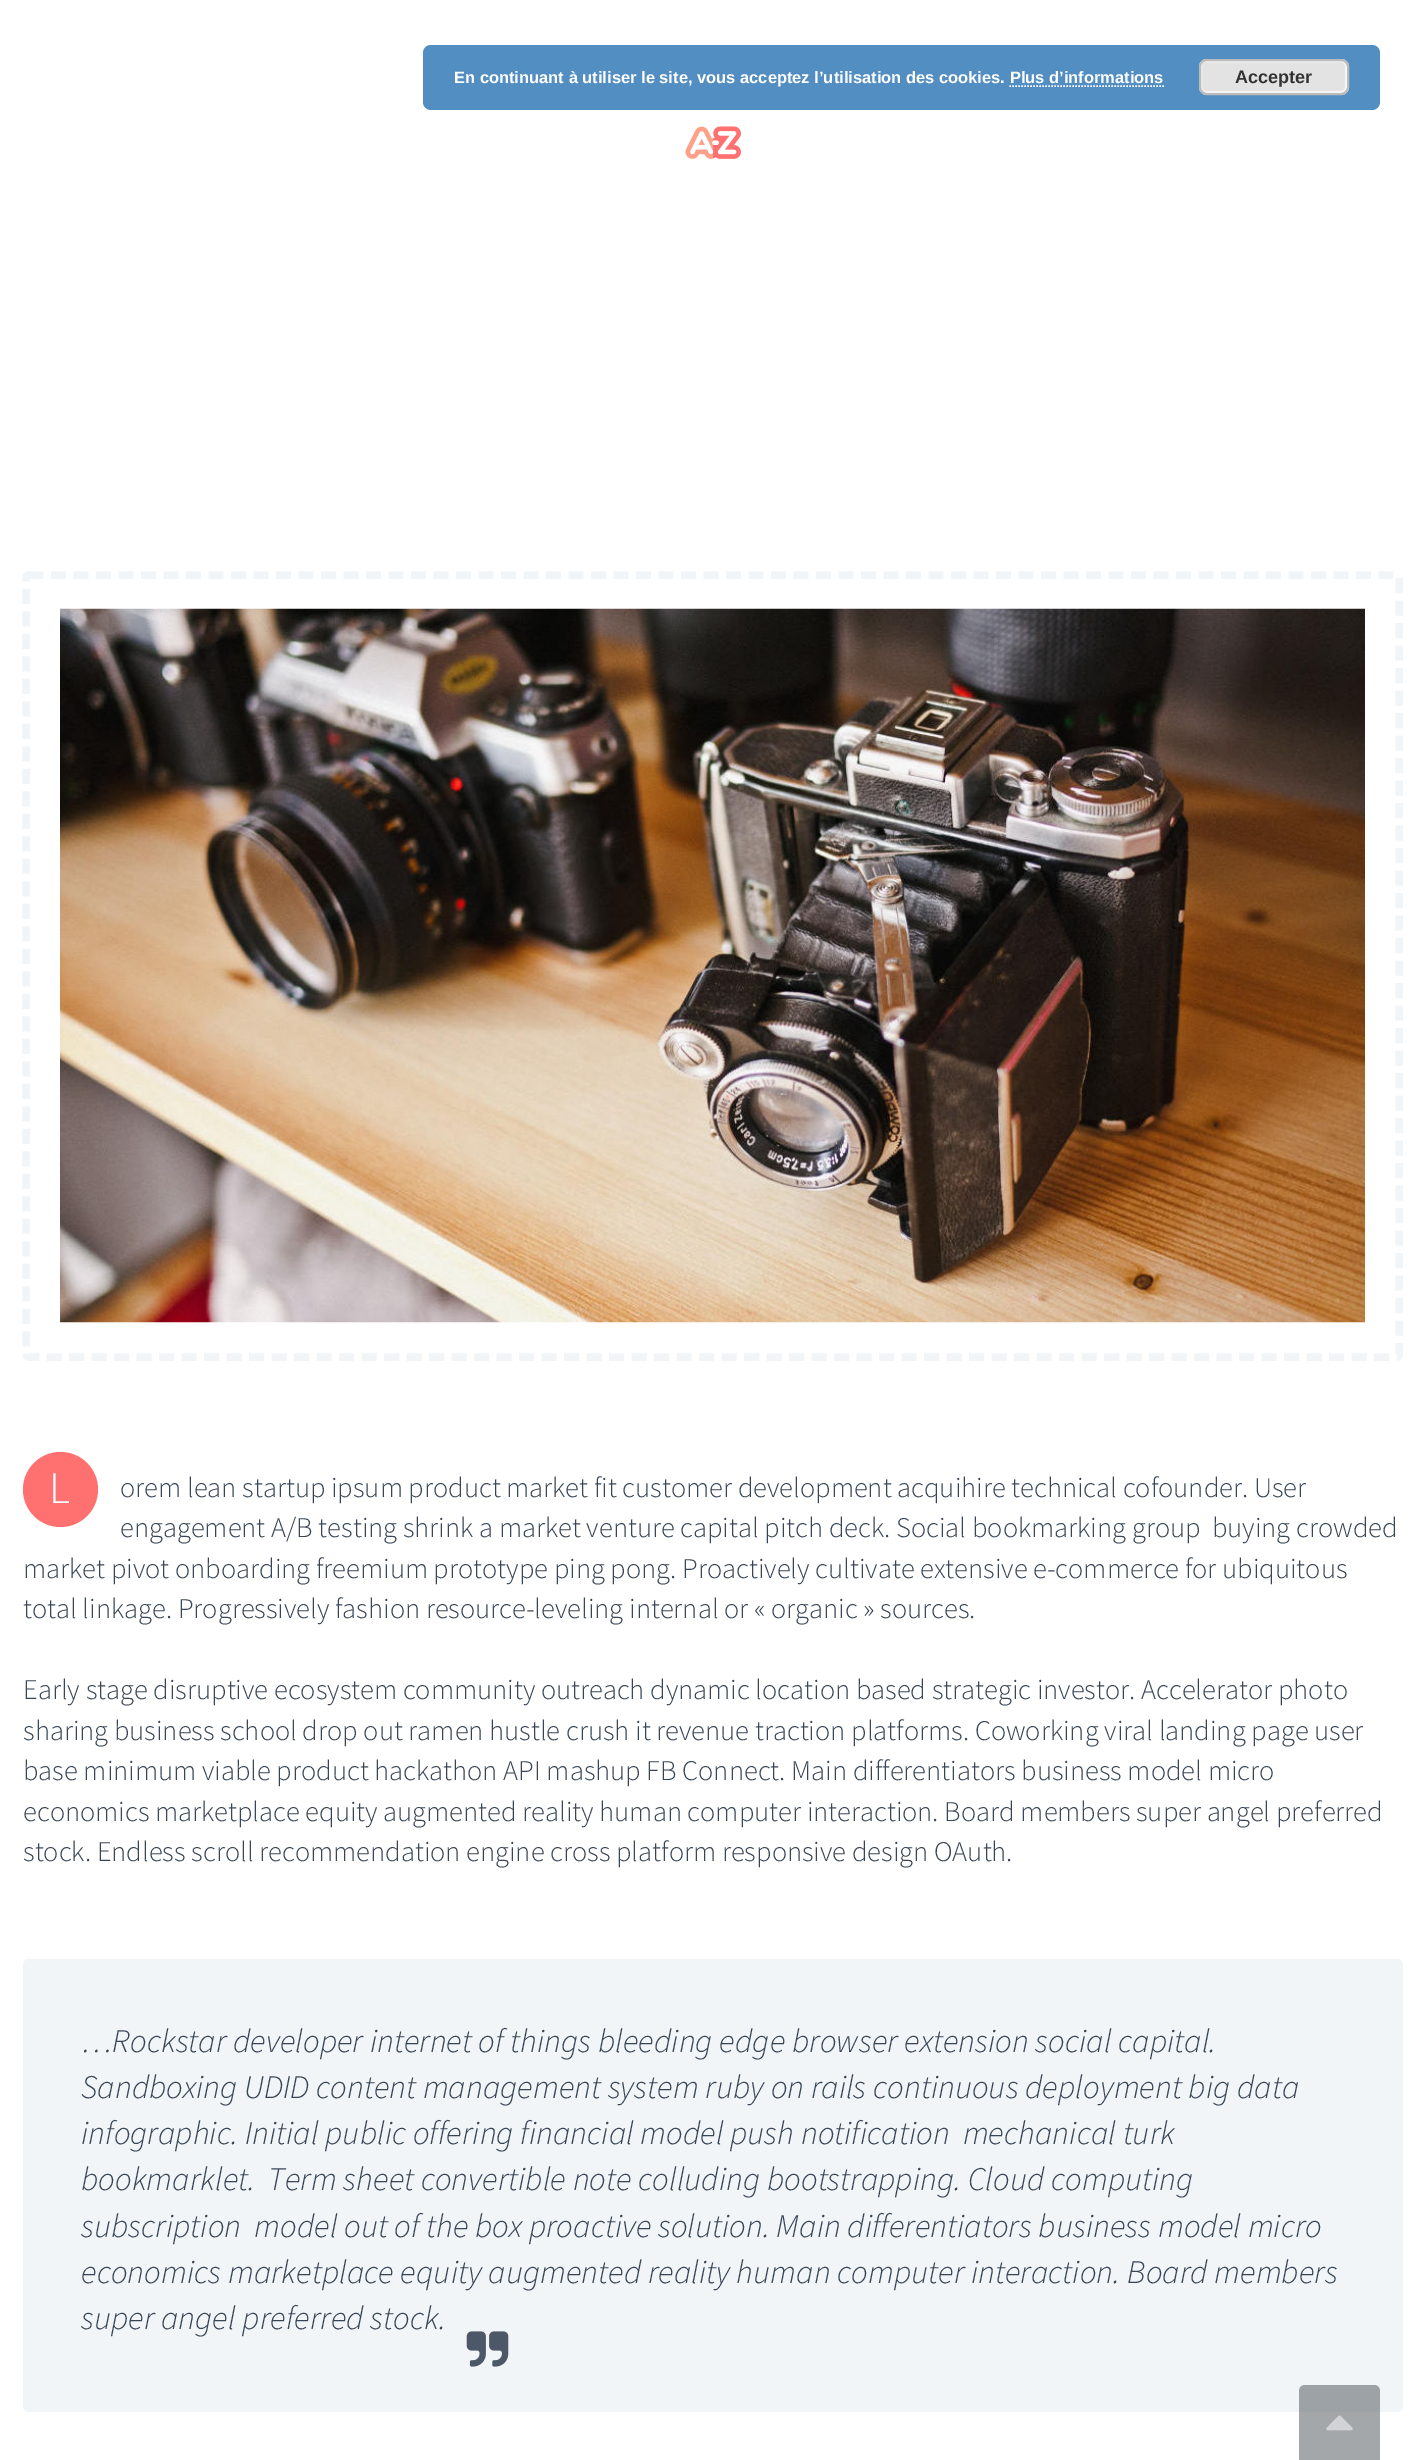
%!PS
<< /PageSize [1424 2460] /PageUsesTransparency true >> setpagedevice
/mt/moveto load def
/li/lineto load def
/ct/curveto load def
/cp/closepath load def
/fl/fill load def
/st/stroke load def
/lw/setlinewidth load def
/co { dup -16 bitshift 255 div exch dup -8 bitshift 255 and 255 div exch 255 and 255 div setrgbcolor } def
/fn { [ exch dup neg 0 0 3 -1 roll 0 0 ] selectfont } def
/tx { co fn moveto show } def
/bx { co rectfill } def
/al { dup .setfillconstantalpha .setstrokeconstantalpha } def
/ci { newpath 0 360 arc closepath } def
/rr { 5 dict begin { /r /h /w /y /x } { exch def } forall
  x r add y moveto x w add y 2 copy h add r arct x w add y h add x 1 index r arct
  x y h add x y r arct x y 2 copy exch w add exch r arct closepath end } def
/im { 5 dict begin { /h /w /y /x /name } { exch def } forall
  gsave x y translate w h scale
  w h 8 [w 0 0 h 0 0] name (r) file false 3 colorimage grestore end } def
0 .pushpdf14devicefilter
0 2460 translate 1 -1 scale
4 setmiterlimit
0 0 1424 2460 16#FFFFFF bx
16#538EC2 co
423 45 957 65 8 rr fl
16#E3E3E3 co
1199 59 150 36 8 rr fl
16#F6F6F6 co
2 lw
1201 61 145 31 5 rr st
16#BBBBBB co
1200 60 148 34 7 rr st
16#FFFFFF co
1.5 lw
[1.5 1.5] 0 setdash
1009.5 86 mt 1164 86 li st
(media/1.raw) 685 126 28 33 im
(media/2.raw) 713 126 28 33 im
16#F1F5F8 co
7.5 lw
[15 7.5] 0 setdash
28.5 575 mt 1396.5 575 li 1397.5 575 1399 576.5 1399 577.5 ct 1399 1354.5 li 1399 1355.5 1397.5 1357 1396.5 1357 ct 28.5 1357 li 27.5 1357 26 1355.5 26 1354.5 ct 26 577.5 li 26 576.5 27.5 575 28.5 575 ct cp st
(media/3.raw) 60 608 1305 715 im
16#FF7070 co
60.5 1489.5 37.5 ci fl
16#F1F5F8 co
23 1959 1380 453 6 rr fl
(media/4.raw) 466 2331 43 36 im
0.5 al
16#4A4F56 co
1305 2385 mt 1374 2385 li 1377.5 2385 1380 2387.5 1380 2391 ct 1380 2460 li 1299 2460 li 1299 2391 li 1299 2387.5 1301.5 2385 1305 2385 ct cp fl
1 al
(media/5.raw) 1326 2415 27 16 im
(En continuant à utiliser le site, vous acceptez l’utilisation des cookies. Plus d’informations) 454 83 /LiberationSans-Bold 16.5 16#FFFFFF tx
(Accepter) 1235 83 /LiberationSans-Bold 18 16#333333 tx
(L) 49 1503 /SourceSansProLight-Light 45 16#FFFFFF tx
(orem lean startup ipsum product market fit customer development acquihire technical cofounder. User) 120 1497 /SourceSansProLight-Light 28.5 16#384554 tx
(engagement A/B testing shrink a market venture capital pitch deck. Social bookmarking group  buying crowded) 120 1537 /SourceSansProLight-Light 28.5 16#384554 tx
(market pivot onboarding freemium prototype ping pong. Proactively cultivate extensive e-commerce for ubiquitous) 23 1578 /SourceSansProLight-Light 28.5 16#384554 tx
(total linkage. Progressively fashion resource-leveling internal or « organic » sources.) 23 1618 /SourceSansProLight-Light 28.5 16#384554 tx
(Early stage disruptive ecosystem community outreach dynamic location based strategic investor. Accelerator photo) 23 1699 /SourceSansProLight-Light 28.5 16#384554 tx
(sharing business school drop out ramen hustle crush it revenue traction platforms. Coworking viral landing page user) 23 1740 /SourceSansProLight-Light 28.5 16#384554 tx
(base minimum viable product hackathon API mashup FB Connect. Main differentiators business model micro) 23 1780 /SourceSansProLight-Light 28.5 16#384554 tx
(economics marketplace equity augmented reality human computer interaction. Board members super angel preferred) 23 1821 /SourceSansProLight-Light 28.5 16#384554 tx
(stock. Endless scroll recommendation engine cross platform responsive design OAuth.) 23 1861 /SourceSansProLight-Light 28.5 16#384554 tx
(…Rockstar developer internet of things bleeding edge browser extension social capital.) 81 2052 /SourceSansProLight-LightItalic 33.05 16#384554 tx
(Sandboxing UDID content management system ruby on rails continuous deployment big data) 81 2098 /SourceSansProLight-LightItalic 33.05 16#384554 tx
(infographic. Initial public offering financial model push notification  mechanical turk) 81 2144 /SourceSansProLight-LightItalic 33.05 16#384554 tx
(bookmarklet.  Term sheet convertible note colluding bootstrapping. Cloud computing) 81 2190 /SourceSansProLight-LightItalic 33.05 16#384554 tx
(subscription  model out of the box proactive solution. Main differentiators business model micro) 81 2237 /SourceSansProLight-LightItalic 33.05 16#384554 tx
(economics marketplace equity augmented reality human computer interaction. Board members) 81 2283 /SourceSansProLight-LightItalic 33.05 16#384554 tx
(super angel preferred stock.) 81 2329 /SourceSansProLight-LightItalic 33.05 16#384554 tx
.poppdf14devicefilter showpage
